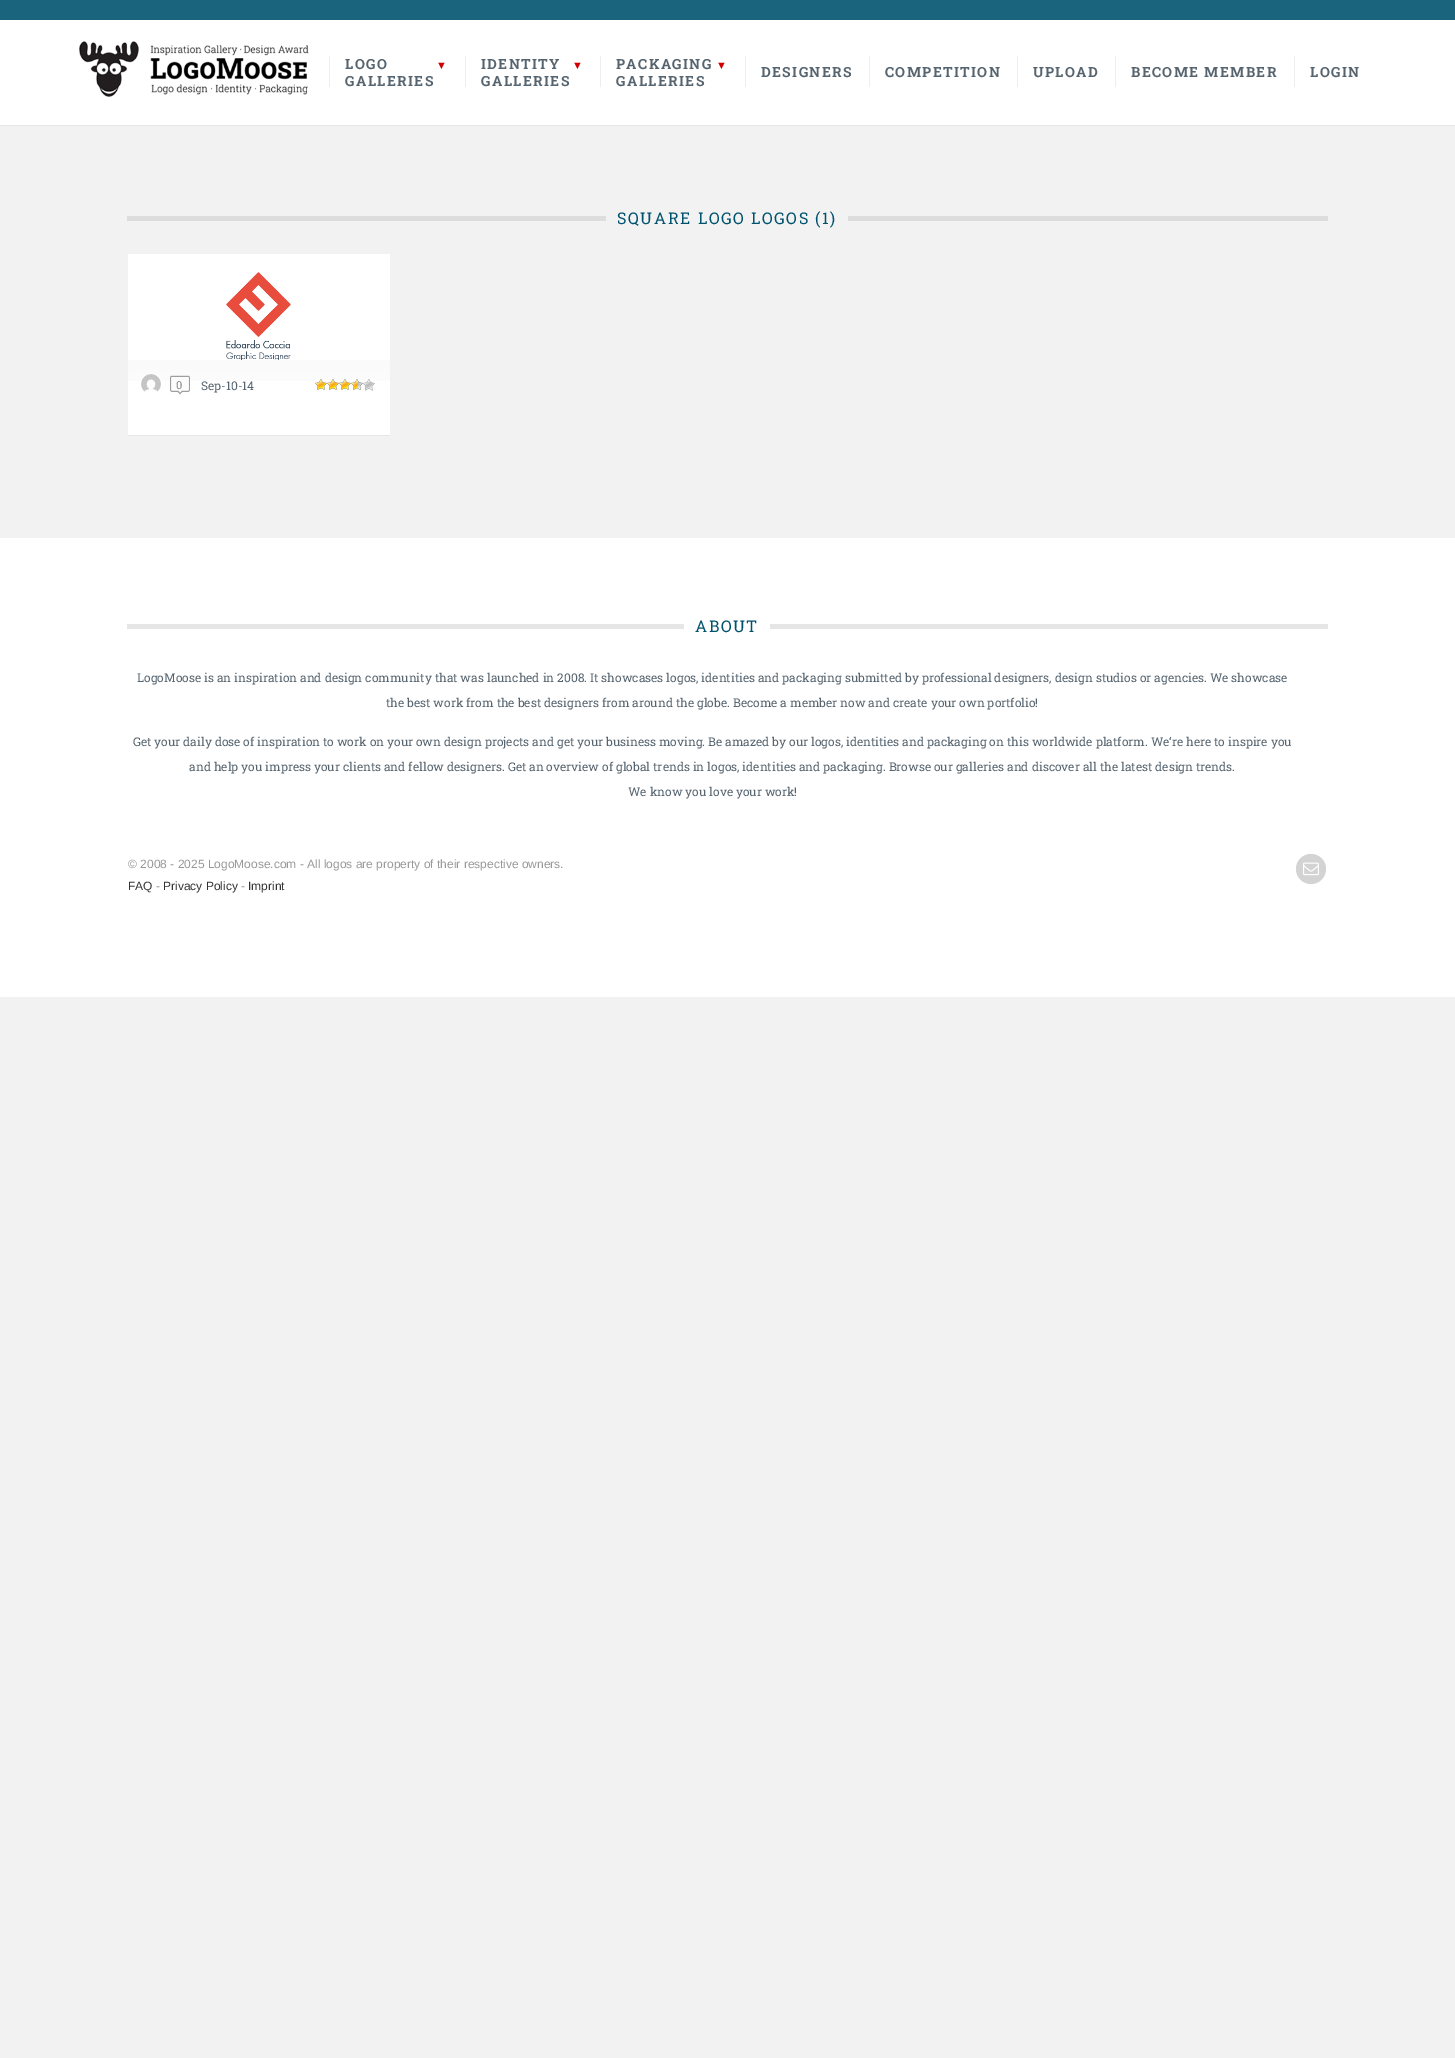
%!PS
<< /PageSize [1455 2058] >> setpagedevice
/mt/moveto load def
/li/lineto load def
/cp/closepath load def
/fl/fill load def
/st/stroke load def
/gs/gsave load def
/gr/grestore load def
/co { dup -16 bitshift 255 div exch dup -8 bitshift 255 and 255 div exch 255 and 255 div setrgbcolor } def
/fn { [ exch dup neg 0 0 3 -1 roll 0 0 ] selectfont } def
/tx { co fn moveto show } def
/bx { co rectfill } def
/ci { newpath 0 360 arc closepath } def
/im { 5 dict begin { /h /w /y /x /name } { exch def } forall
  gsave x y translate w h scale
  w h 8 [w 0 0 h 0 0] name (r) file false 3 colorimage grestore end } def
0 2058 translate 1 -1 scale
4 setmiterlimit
0 0 1455 2058 16#F2F2F2 bx
0 0 1455 20 16#1A647D bx
0 125 1455 1 16#E6E6E6 bx
0 20 1455 105 16#FFFFFF bx
(media/1.raw) 79 41 230 57 im
329 56 1 31 16#EEEEEE bx
465 56 1 31 16#EEEEEE bx
600 56 1 31 16#EEEEEE bx
745 56 1 31 16#EEEEEE bx
869 56 1 31 16#EEEEEE bx
1017 56 1 31 16#EEEEEE bx
1115 56 1 31 16#EEEEEE bx
1294 56 1 31 16#EEEEEE bx
127 216 479 5 16#DDDDDD bx
848 216 480 5 16#DDDDDD bx
128 254 262 181 16#FFFFFF bx
128 435 262 1 16#E6E6E6 bx
(media/2.raw) 226 272 65 88 im
gs 128 360 mt 390 360 li 390 381 li 128 381 li cp clip newpath
<< /ShadingType 2 /ColorSpace /DeviceRGB /Coords [259 360 259 403] /Extend [true true] /Function << /FunctionType 2 /Domain [0 1] /C0 [.98 .98 .98] /C1 [1 1 1] /N 1 >> >> shfill gr
16#FFFFFF co
151 384 10.5 ci st
(media/3.raw) 141 374 20 18 im
(media/4.raw) 170 375 20 20 im
(media/5.raw) 315 379 12 11 im
(media/5.raw) 327 379 12 11 im
(media/5.raw) 339 379 12 11 im
(media/6.raw) 351 379 12 11 im
(media/7.raw) 363 379 12 12 im
0 538 1455 459 16#FFFFFF bx
127 624 557 5 16#E6E6E6 bx
770 624 558 5 16#E6E6E6 bx
16#D3D3D3 co
1311 869 15 ci fl
(media/8.raw) 1303 862 16 14 im
/RobotoSlab-Bold 14 fn
16#56646F co
345 69 mt 1.4 0 (LOGO) ashow
/LiberationSerif-Regular 11 fn
16#D10000 co
436 69 mt 1.4 0 (▼) ashow
/RobotoSlab-Bold 14 fn
16#56646F co
345 86 mt 1.4 0 (GALLERIES) ashow
481 69 mt 1.4 0 (IDENTITY) ashow
/LiberationSerif-Regular 11 fn
16#D10000 co
572 69 mt 1.4 0 (▼) ashow
/RobotoSlab-Bold 14 fn
16#56646F co
481 86 mt 1.4 0 (GALLERIES) ashow
616 69 mt 1.4 0 (PACKAGING) ashow
/LiberationSerif-Regular 11 fn
16#D10000 co
716 69 mt 1.4 0 (▼) ashow
/RobotoSlab-Bold 14 fn
16#56646F co
616 86 mt 1.4 0 (GALLERIES) ashow
761 77 mt 1.4 0 (DESIGNERS) ashow
885 77 mt 1.4 0 (COMPETITION) ashow
1033 77 mt 1.4 0 (UPLOAD) ashow
1131 77 mt 1.4 0 (BECOME MEMBER) ashow
1310 77 mt 1.4 0 (LOGIN) ashow
/RobotoSlab-Regular 16.1 fn
16#00536E co
617 224 mt 1.6 0 (SQUARE LOGO LOGOS \(1\)) ashow
(0) 176 389 /RobotoSlab-Regular 11 16#888888 tx
(Sep-10-14) 201 390 /RobotoSlab-Regular 12 16#56646F tx
/RobotoSlab-Regular 16.1 fn
16#00536E co
695 632 mt 1.6 0 (ABOUT) ashow
(LogoMoose is an inspiration and design community that was launched in 2008. It showcases logos, identities and packaging submitted by professional designers, design studios or agencies. We showcase) 137 682 /RobotoSlab-Regular 12 16#56646F tx
(the best work from the best designers from around the globe. Become a member now and create your own portfolio!) 386 707 /RobotoSlab-Regular 12 16#56646F tx
(Get your daily dose of inspiration to work on your own design projects and get your business moving. Be amazed by our logos, identities and packaging on this worldwide platform. We‘re here to inspire you) 133 746 /RobotoSlab-Regular 12 16#56646F tx
(and help you impress your clients and fellow designers. Get an overview of global trends in logos, identities and packaging. Browse our galleries and discover all the latest design trends.) 189 771 /RobotoSlab-Regular 12 16#56646F tx
(We know you love your work!) 628 796 /RobotoSlab-Regular 12 16#56646F tx
(© 2008 - 2025 LogoMoose.com - All logos are property of their respective owners.) 128 868 /LiberationSans-Regular 12 16#999999 tx
(FAQ) 128 890 /LiberationSans-Regular 12 16#333333 tx
(-) 156 890 /LiberationSans-Regular 12 16#999999 tx
(Privacy Policy) 163 890 /LiberationSans-Regular 12 16#333333 tx
(-) 241 890 /LiberationSans-Regular 12 16#999999 tx
(Imprint) 248 890 /LiberationSans-Regular 12 16#333333 tx
showpage
